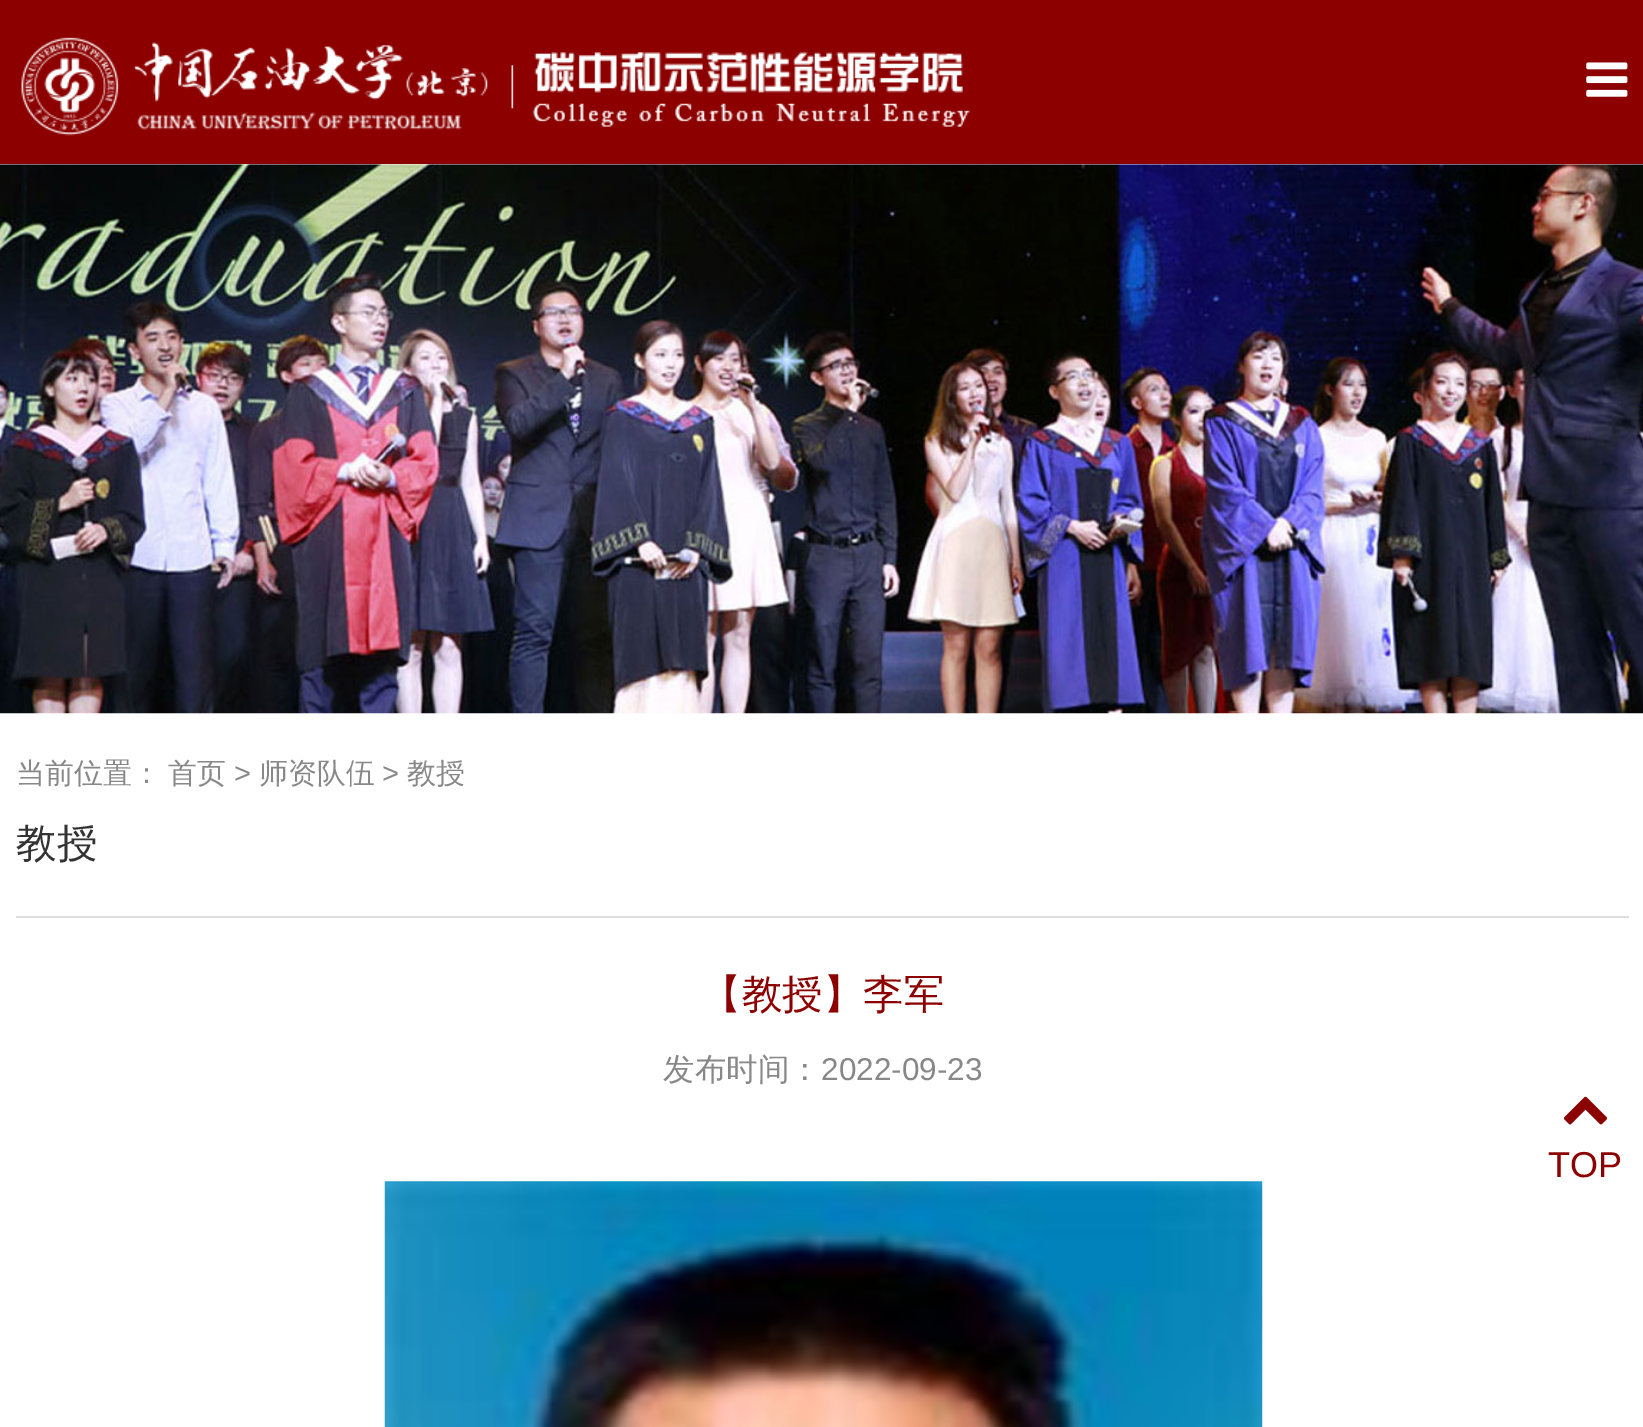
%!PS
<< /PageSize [1643 1427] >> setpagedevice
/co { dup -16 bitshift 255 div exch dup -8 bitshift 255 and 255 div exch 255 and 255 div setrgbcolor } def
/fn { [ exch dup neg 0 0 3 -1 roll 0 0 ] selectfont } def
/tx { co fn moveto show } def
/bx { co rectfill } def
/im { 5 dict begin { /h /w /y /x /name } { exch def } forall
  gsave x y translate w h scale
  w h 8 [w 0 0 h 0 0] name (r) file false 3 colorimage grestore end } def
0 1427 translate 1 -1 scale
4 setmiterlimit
0 0 1643 1427 16#FFFFFF bx
0 0 1643 164 16#8C0000 bx
(media/1.raw) 21 37 950 99 im
(media/2.raw) 1586 62 42 35 im
(media/3.raw) 0 164 1643 550 im
16 916 1613 2 16#DDDDDD bx
(media/4.raw) 384 1181 879 246 im
(media/5.raw) 1563 1096 45 29 im
(当前位置：) 16 783 /WenQuanYiZenHei-Medium 29 16#888888 tx
(首页) 168 783 /WenQuanYiZenHei-Medium 29 16#888888 tx
(>) 234 783 /LiberationSans-Regular 29 16#888888 tx
(师资队伍) 259 783 /WenQuanYiZenHei-Medium 29 16#888888 tx
(>) 382 783 /LiberationSans-Regular 29 16#888888 tx
(教授) 407 783 /WenQuanYiZenHei-Medium 29 16#888888 tx
(教授) 16 857 /WenQuanYiZenHei-Medium 40.5 16#333333 tx
(【教授】李军) 701 1008 /WenQuanYiZenHei-Medium 40.5 16#8C0000 tx
(发布时间：) 663 1080 /WenQuanYiZenHei-Medium 31.5 16#888888 tx
(2022-09-23) 821 1080 /LiberationSans-Regular 31.5 16#888888 tx
(TOP) 1548 1177 /LiberationSans-Regular 36 16#8C0000 tx
showpage
